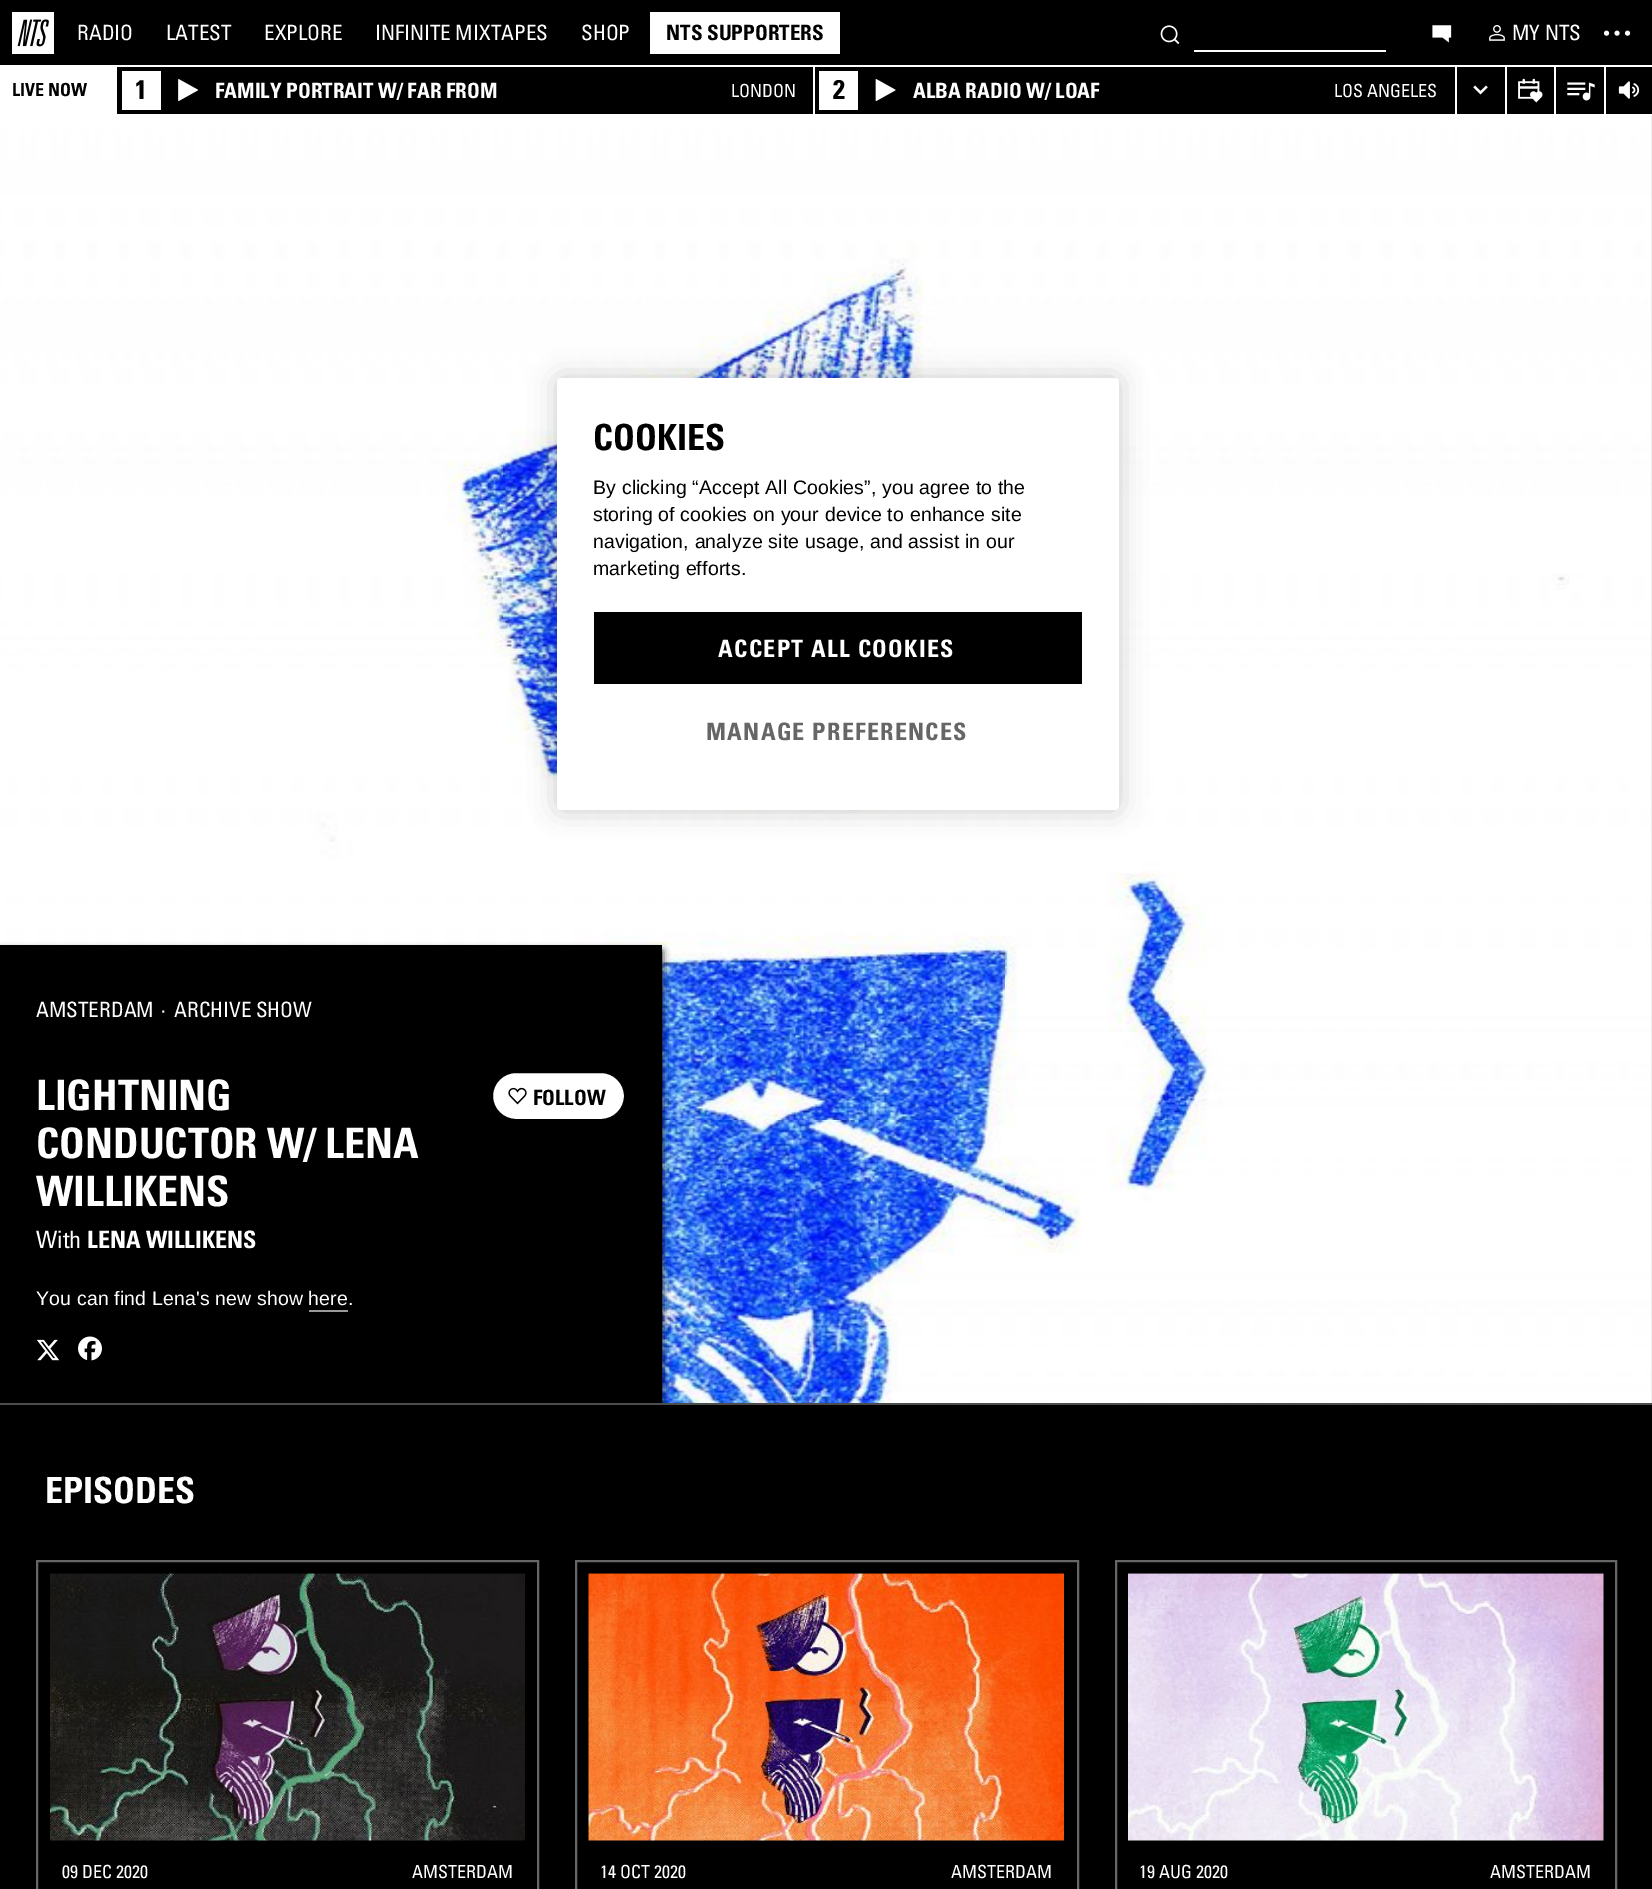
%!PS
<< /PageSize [1652 1889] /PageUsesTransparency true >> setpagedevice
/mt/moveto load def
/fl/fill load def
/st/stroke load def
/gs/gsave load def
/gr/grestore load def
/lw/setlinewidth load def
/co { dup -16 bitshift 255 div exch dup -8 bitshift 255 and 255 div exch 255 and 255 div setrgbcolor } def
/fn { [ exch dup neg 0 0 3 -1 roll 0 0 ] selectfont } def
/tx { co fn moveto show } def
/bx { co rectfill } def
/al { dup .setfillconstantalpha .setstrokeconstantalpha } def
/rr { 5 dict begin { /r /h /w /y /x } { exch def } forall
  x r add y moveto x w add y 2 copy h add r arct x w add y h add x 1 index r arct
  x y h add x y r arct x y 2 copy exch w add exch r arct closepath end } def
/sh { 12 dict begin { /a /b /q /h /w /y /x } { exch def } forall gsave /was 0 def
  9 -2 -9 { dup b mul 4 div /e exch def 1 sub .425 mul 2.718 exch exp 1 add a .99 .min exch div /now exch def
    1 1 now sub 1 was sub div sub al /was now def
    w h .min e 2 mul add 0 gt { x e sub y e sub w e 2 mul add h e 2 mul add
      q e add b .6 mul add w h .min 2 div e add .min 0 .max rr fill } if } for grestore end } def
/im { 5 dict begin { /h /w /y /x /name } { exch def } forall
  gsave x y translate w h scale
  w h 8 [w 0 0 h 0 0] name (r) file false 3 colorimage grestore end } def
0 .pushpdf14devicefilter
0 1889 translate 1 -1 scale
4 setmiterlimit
0 0 1652 1889 16#000000 bx
813 66 2 48 16#FFFFFF bx
0 114 1652 2 16#FFFFFF bx
1455 66 2 50 16#FFFFFF bx
1505 66 2 50 16#FFFFFF bx
1554 66 2 50 16#FFFFFF bx
1604 66 2 50 16#FFFFFF bx
0 65 1652 2 16#FFFFFF bx
(media/1.raw) 12 12 42 42 im
650 12 190 42 16#FFFFFF bx
(media/2.raw) 1160 25 20 20 im
1194 50 192 2 16#FFFFFF bx
(media/3.raw) 1432 25 20 18 im
(media/4.raw) 1489 25 16 16 im
(media/5.raw) 1603 30 28 6 im
0 67 117 47 16#FFFFFF bx
122 71 39 39 16#FFFFFF bx
(media/6.raw) 178 79 21 22 im
819 71 39 39 16#FFFFFF bx
(media/7.raw) 875 79 21 22 im
(media/8.raw) 1473 85 15 10 im
(media/9.raw) 1518 78 25 25 im
(media/10.raw) 1567 82 28 19 im
(media/11.raw) 1618 81 22 18 im
(media/12.raw) 0 116 1652 1287 im
16#000000 co
0 951 662 458 0 4 1 sh
0 945 662 458 16#000000 bx
16#FFFFFF co
492 1072 133 48 24 rr gs fl gr
16#000000 co
2 lw
st
(media/13.raw) 508 1087 19 18 im
309 1310 39 2 16#999999 bx
(media/14.raw) 36 1339 24 22 im
(media/15.raw) 78 1336 24 25 im
0 1403 1652 2 16#4D4D4D bx
16#666666 co
37 1561 501 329 rectstroke
(media/16.raw) 50 1573 475 268 im
576 1561 502 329 rectstroke
(media/17.raw) 588 1573 476 268 im
1116 1561 500 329 rectstroke
(media/18.raw) 1128 1573 476 268 im
16#000000 co
557 378 562 432 4 13.5 .2 sh
16#FFFFFF co
557 378 562 432 4 rr fl
594 612 488 72 16#000000 bx
(RADIO) 77 40 /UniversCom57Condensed-Regular 21 16#FFFFFF tx
(LATEST) 166 40 /UniversCom57Condensed-Regular 21 16#FFFFFF tx
(EXPLORE) 264 40 /UniversCom57Condensed-Regular 21 16#FFFFFF tx
(INFINITE MIXTAPES) 375 40 /UniversCom57Condensed-Regular 21 16#FFFFFF tx
(SHOP) 581 40 /UniversCom57Condensed-Regular 21 16#FFFFFF tx
(NTS SUPPORTERS) 666 40 /Univers-Bold 21 16#000000 tx
(MY NTS) 1512 40 /UniversCom57Condensed-Regular 21 16#FFFFFF tx
(LIVE NOW) 12 96 /Univers-Bold 18 16#000000 tx
(1) 135 99 /Univers-Bold 27 16#000000 tx
(FAMILY PORTRAIT W/ FAR FROM) 215 98 /Univers-Bold 21 16#FFFFFF tx
(LONDON) 731 97 /UniversCom57Condensed-Regular 18 16#FFFFFF tx
(2) 833 99 /Univers-Bold 27 16#000000 tx
(ALBA RADIO W/ LOAF) 913 98 /Univers-Bold 21 16#FFFFFF tx
(LOS ANGELES) 1334 97 /UniversCom57Condensed-Regular 18 16#FFFFFF tx
(AMSTERDAM) 36 1017 /UniversCom57Condensed-Regular 21 16#FFFFFF tx
(·) 161 1017 /UniversCom57Condensed-Regular 21 16#FFFFFF tx
(ARCHIVE SHOW) 174 1017 /UniversCom57Condensed-Regular 21 16#FFFFFF tx
(LIGHTNING) 36 1110 /Univers-Bold 42 16#FFFFFF tx
(CONDUCTOR W/ LENA) 36 1158 /Univers-Bold 42 16#FFFFFF tx
(WILLIKENS) 36 1206 /Univers-Bold 42 16#FFFFFF tx
(With) 36 1248 /UniversCom57Condensed-Regular 24 16#FFFFFF tx
(LENA WILLIKENS) 87 1248 /Univers-Bold 24 16#FFFFFF tx
(FOLLOW) 533 1105 /Univers-Bold 21 16#000000 tx
/LiberationSans-Regular 19.5 fn
16#FFFFFF co
36 1305 mt .15 0 (You can find Lena's new show here.) ashow
(EPISODES) 45 1503 /Univers-Bold 36 16#FFFFFF tx
(09 DEC 2020) 62 1878 /UniversCom57Condensed-Regular 18 16#FFFFFF tx
(AMSTERDAM) 412 1878 /UniversCom57Condensed-Regular 18 16#FFFFFF tx
(14 OCT 2020) 600 1878 /UniversCom57Condensed-Regular 18 16#FFFFFF tx
(AMSTERDAM) 951 1878 /UniversCom57Condensed-Regular 18 16#FFFFFF tx
(19 AUG 2020) 1139 1878 /UniversCom57Condensed-Regular 18 16#FFFFFF tx
(AMSTERDAM) 1490 1878 /UniversCom57Condensed-Regular 18 16#FFFFFF tx
(COOKIES) 593 450 /Univers-Bold 36 16#000000 tx
/LiberationSans-Regular 19.5 fn
593 494 mt .15 0 (By clicking “Accept All Cookies”, you agree to the) ashow
593 521 mt .15 0 (storing of cookies on your device to enhance site) ashow
593 548 mt .15 0 (navigation, analyze site usage, and assist in our) ashow
593 575 mt .15 0 (marketing efforts.) ashow
/Univers-Bold 24 fn
16#FFFFFF co
718 657 mt 1.3 0 (ACCEPT ALL COOKIES) ashow
16#666666 co
706 740 mt 1.3 0 (MANAGE PREFERENCES) ashow
.poppdf14devicefilter showpage
